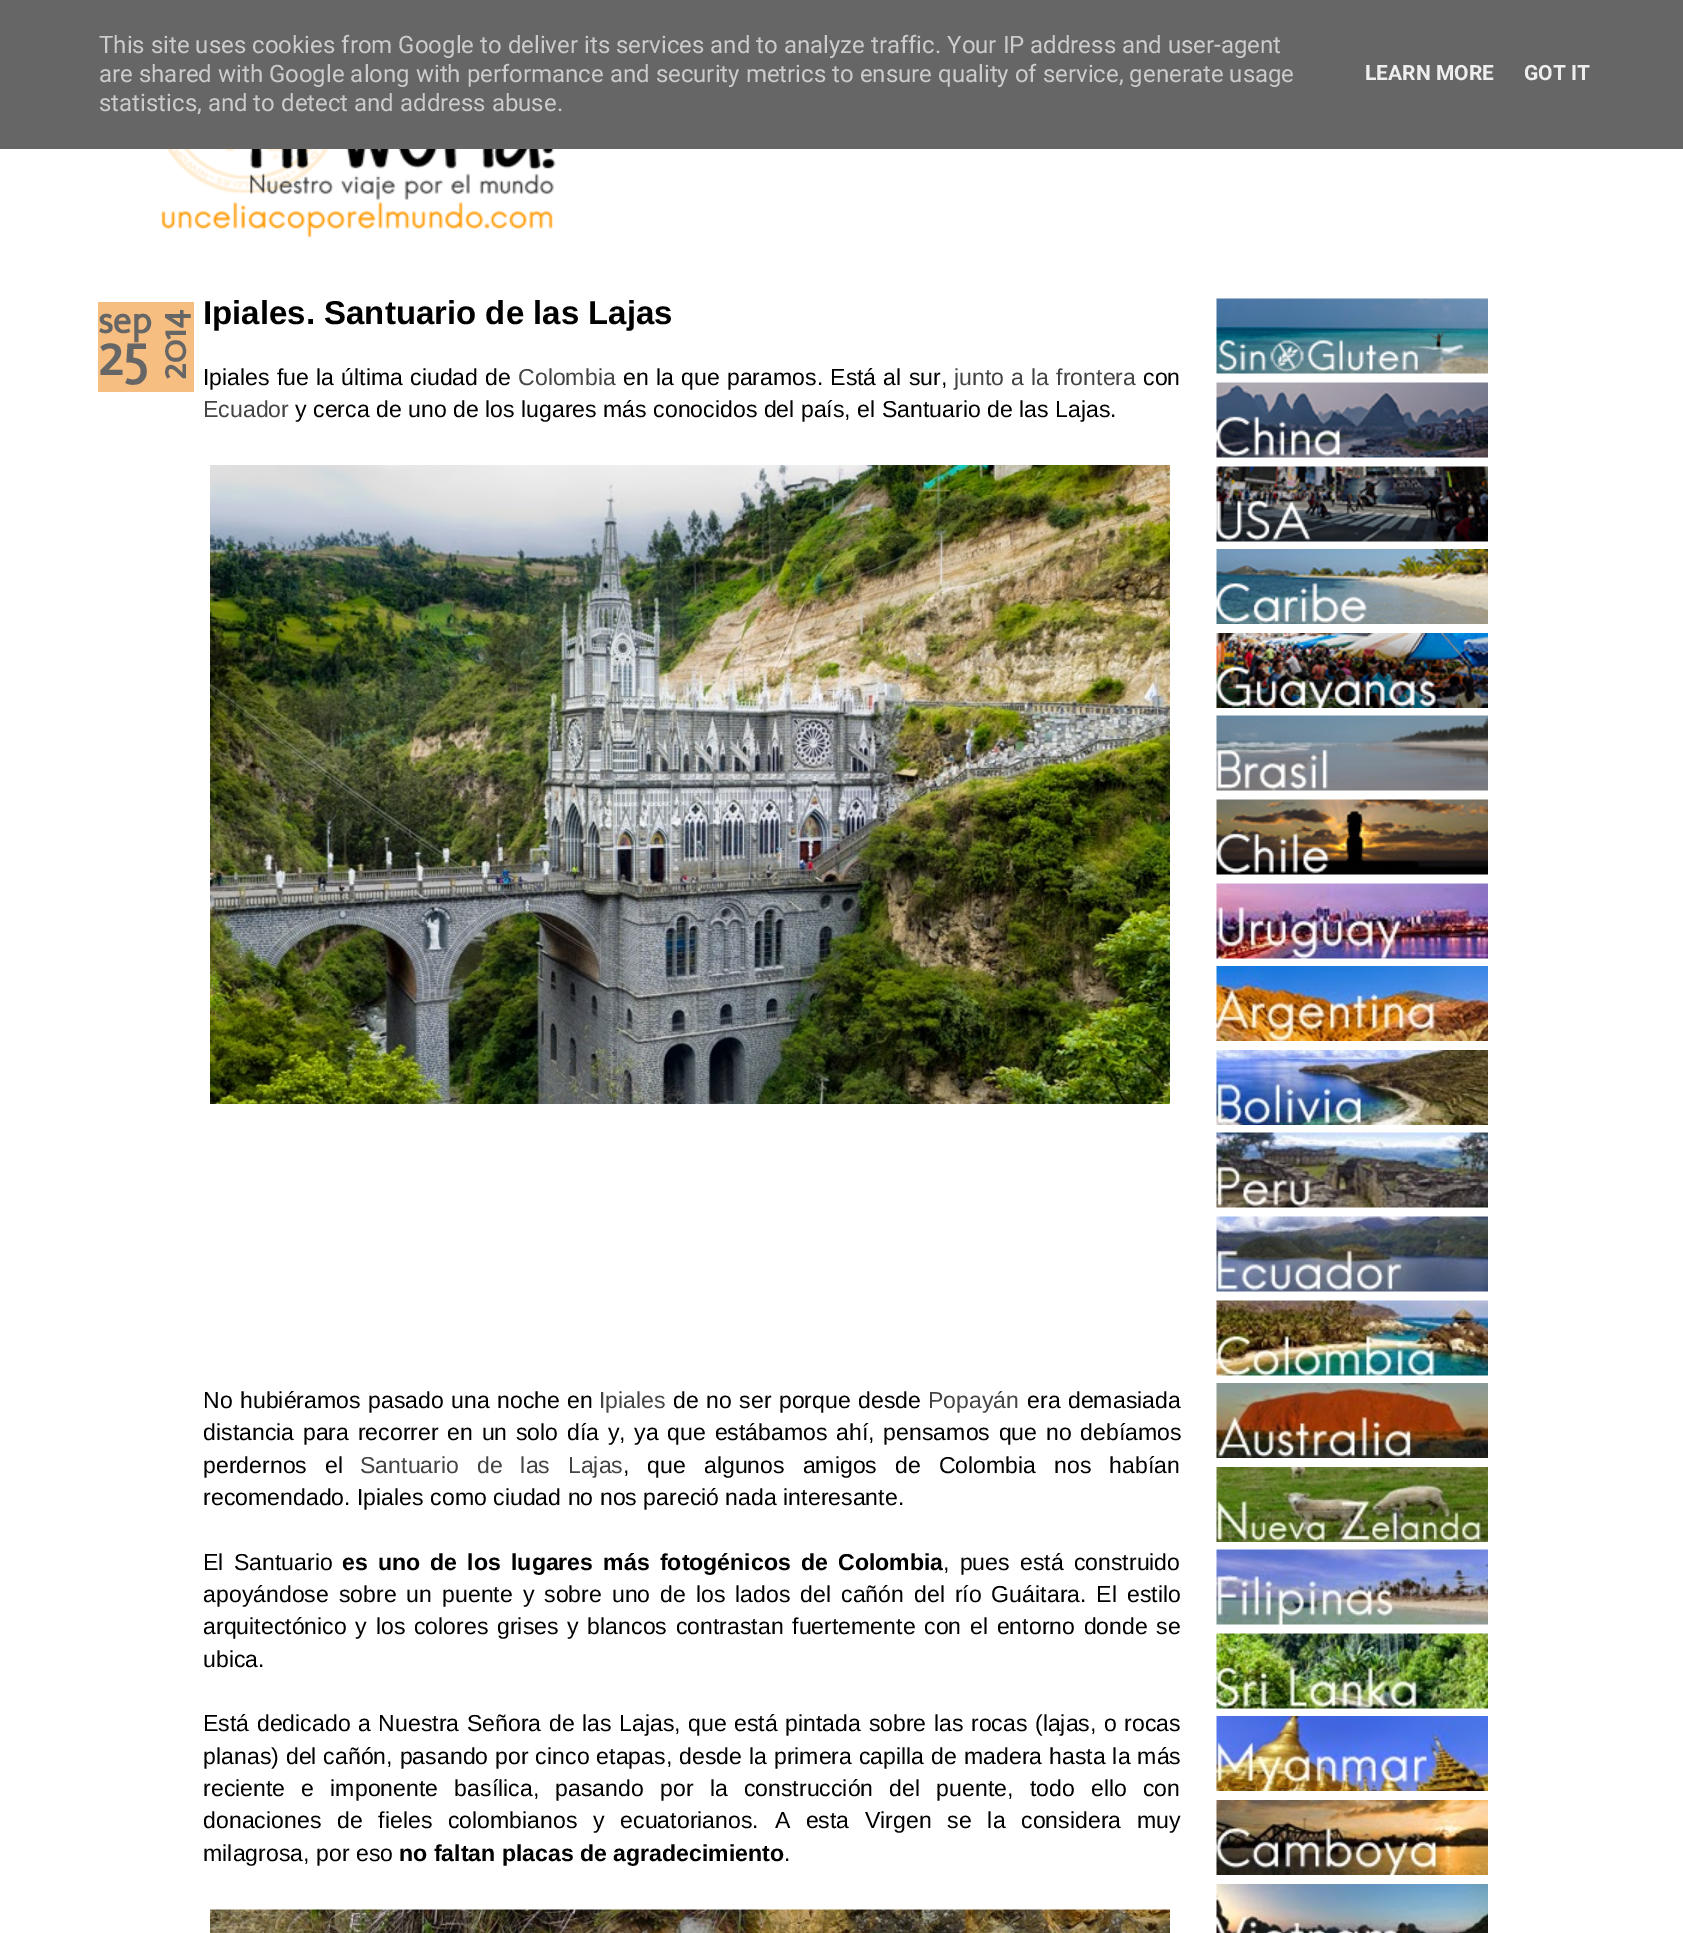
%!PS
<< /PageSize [1683 1933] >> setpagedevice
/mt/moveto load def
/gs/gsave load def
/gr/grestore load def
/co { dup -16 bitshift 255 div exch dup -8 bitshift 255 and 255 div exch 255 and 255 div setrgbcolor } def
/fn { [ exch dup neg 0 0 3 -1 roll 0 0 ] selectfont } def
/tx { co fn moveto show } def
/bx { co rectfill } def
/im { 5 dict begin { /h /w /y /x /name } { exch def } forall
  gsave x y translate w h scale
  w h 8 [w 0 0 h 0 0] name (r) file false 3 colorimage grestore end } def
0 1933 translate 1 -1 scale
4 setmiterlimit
0 0 1683 1933 16#FFFFFF bx
0 0 1683 149 16#666666 bx
(media/1.raw) 161 149 395 88 im
98 302 96 90 16#F7BE81 bx
(media/2.raw) 210 465 960 639 im
(media/3.raw) 210 1909 960 24 im
(media/4.raw) 1216 298 272 76 im
(media/5.raw) 1216 382 272 76 im
(media/6.raw) 1216 466 272 76 im
(media/7.raw) 1216 549 272 75 im
(media/8.raw) 1216 633 272 75 im
(media/9.raw) 1216 715 272 76 im
(media/10.raw) 1216 799 272 76 im
(media/11.raw) 1216 883 272 76 im
(media/12.raw) 1216 966 272 75 im
(media/13.raw) 1216 1050 272 75 im
(media/14.raw) 1216 1132 272 76 im
(media/15.raw) 1216 1216 272 76 im
(media/16.raw) 1216 1300 272 76 im
(media/17.raw) 1216 1383 272 75 im
(media/18.raw) 1216 1467 272 75 im
(media/19.raw) 1216 1549 272 76 im
(media/20.raw) 1216 1633 272 76 im
(media/21.raw) 1216 1716 272 75 im
(media/22.raw) 1216 1800 272 75 im
(media/23.raw) 1216 1884 272 49 im
(This site uses cookies from Google to deliver its services and to analyze traffic. Your IP address and user-agent) 99 53 /Roboto-Regular 24 16#CCCCCC tx
(are shared with Google along with performance and security metrics to ensure quality of service, generate usage) 99 82 /Roboto-Regular 24 16#CCCCCC tx
(statistics, and to detect and address abuse.) 99 111 /Roboto-Regular 24 16#CCCCCC tx
(LEARN MORE) 1365 80 /Roboto-Bold 21 16#EEEEEE tx
(GOT IT) 1524 80 /Roboto-Bold 21 16#EEEEEE tx
(sep) 98 333 /Molengo-Bold 39 16#666666 tx
/Molengo-Bold 38 fn
gs 186 380 translate -90 rotate 0 0 mt (2014) show gr
(25) 98 375 /Molengo-Bold 58 16#666666 tx
(Ipiales. Santuario de las Lajas) 203 324 /LiberationSans-Bold 33 16#000000 tx
/LiberationSans-Regular 23.1 fn
203 385 mt .75 0 32 (Ipiales fue la última ciudad de) widthshow
(Colombia) 518 385 /LiberationSans-Regular 23.1 16#444444 tx
16#000000 co
623 385 mt .75 0 32 (en la que paramos. Está al sur,) widthshow
16#444444 co
954 385 mt .75 0 32 (junto a la frontera) widthshow
(con) 1143 385 /LiberationSans-Regular 23.1 16#000000 tx
(Ecuador) 203 417 /LiberationSans-Regular 23.1 16#444444 tx
(y cerca de uno de los lugares más conocidos del país, el Santuario de las Lajas.) 295 417 /LiberationSans-Regular 23.1 16#000000 tx
203 1408 mt 1 0 32 (No hubiéramos pasado una noche en) widthshow
(Ipiales) 599 1408 /LiberationSans-Regular 23.1 16#444444 tx
16#000000 co
673 1408 mt 1 0 32 (de no ser porque desde) widthshow
(Popayán) 928 1408 /LiberationSans-Regular 23.1 16#444444 tx
16#000000 co
1027 1408 mt 1 0 32 (era demasiada) widthshow
203 1440 mt 2.25 0 32 (distancia para recorrer en un solo día y, ya que estábamos ahí, pensamos que no debíamos) widthshow
203 1473 mt 11.5 0 32 (perdernos el) widthshow
16#444444 co
360 1473 mt 11.5 0 32 (Santuario de las Lajas) widthshow
16#000000 co
623 1473 mt 11.5 0 32 (, que algunos amigos de Colombia nos habían) widthshow
(recomendado. Ipiales como ciudad no nos pareció nada interesante.) 203 1505 /LiberationSans-Regular 23.1 16#000000 tx
203 1570 mt 3.75 0 32 (El Santuario) widthshow
/LiberationSans-Bold 23.1 fn
342 1570 mt 3.75 0 32 (es uno de los lugares más fotogénicos de Colombia) widthshow
/LiberationSans-Regular 23.1 fn
943 1570 mt 3.75 0 32 (, pues está construido) widthshow
203 1602 mt 3.5 0 32 (apoyándose sobre un puente y sobre uno de los lados del cañón del río Guáitara. El estilo) widthshow
203 1634 mt 2.25 0 32 (arquitectónico y los colores grises y blancos contrastan fuertemente con el entorno donde se) widthshow
(ubica.) 203 1667 /LiberationSans-Regular 23.1 16#000000 tx
203 1731 mt 1.1 0 32 (Está dedicado a Nuestra Señora de las Lajas, que está pintada sobre las rocas \(lajas, o rocas) widthshow
203 1764 mt .5 0 32 (planas\) del cañón, pasando por cinco etapas, desde la primera capilla de madera hasta la más) widthshow
203 1796 mt 9.75 0 32 (reciente e imponente basílica, pasando por la construcción del puente, todo ello con) widthshow
203 1828 mt 9.25 0 32 (donaciones de fieles colombianos y ecuatorianos. A esta Virgen se la considera muy) widthshow
(milagrosa, por eso) 203 1861 /LiberationSans-Regular 23.1 16#000000 tx
(no faltan placas de agradecimiento) 399 1861 /LiberationSans-Bold 23.1 16#000000 tx
(.) 784 1861 /LiberationSans-Regular 23.1 16#000000 tx
showpage
